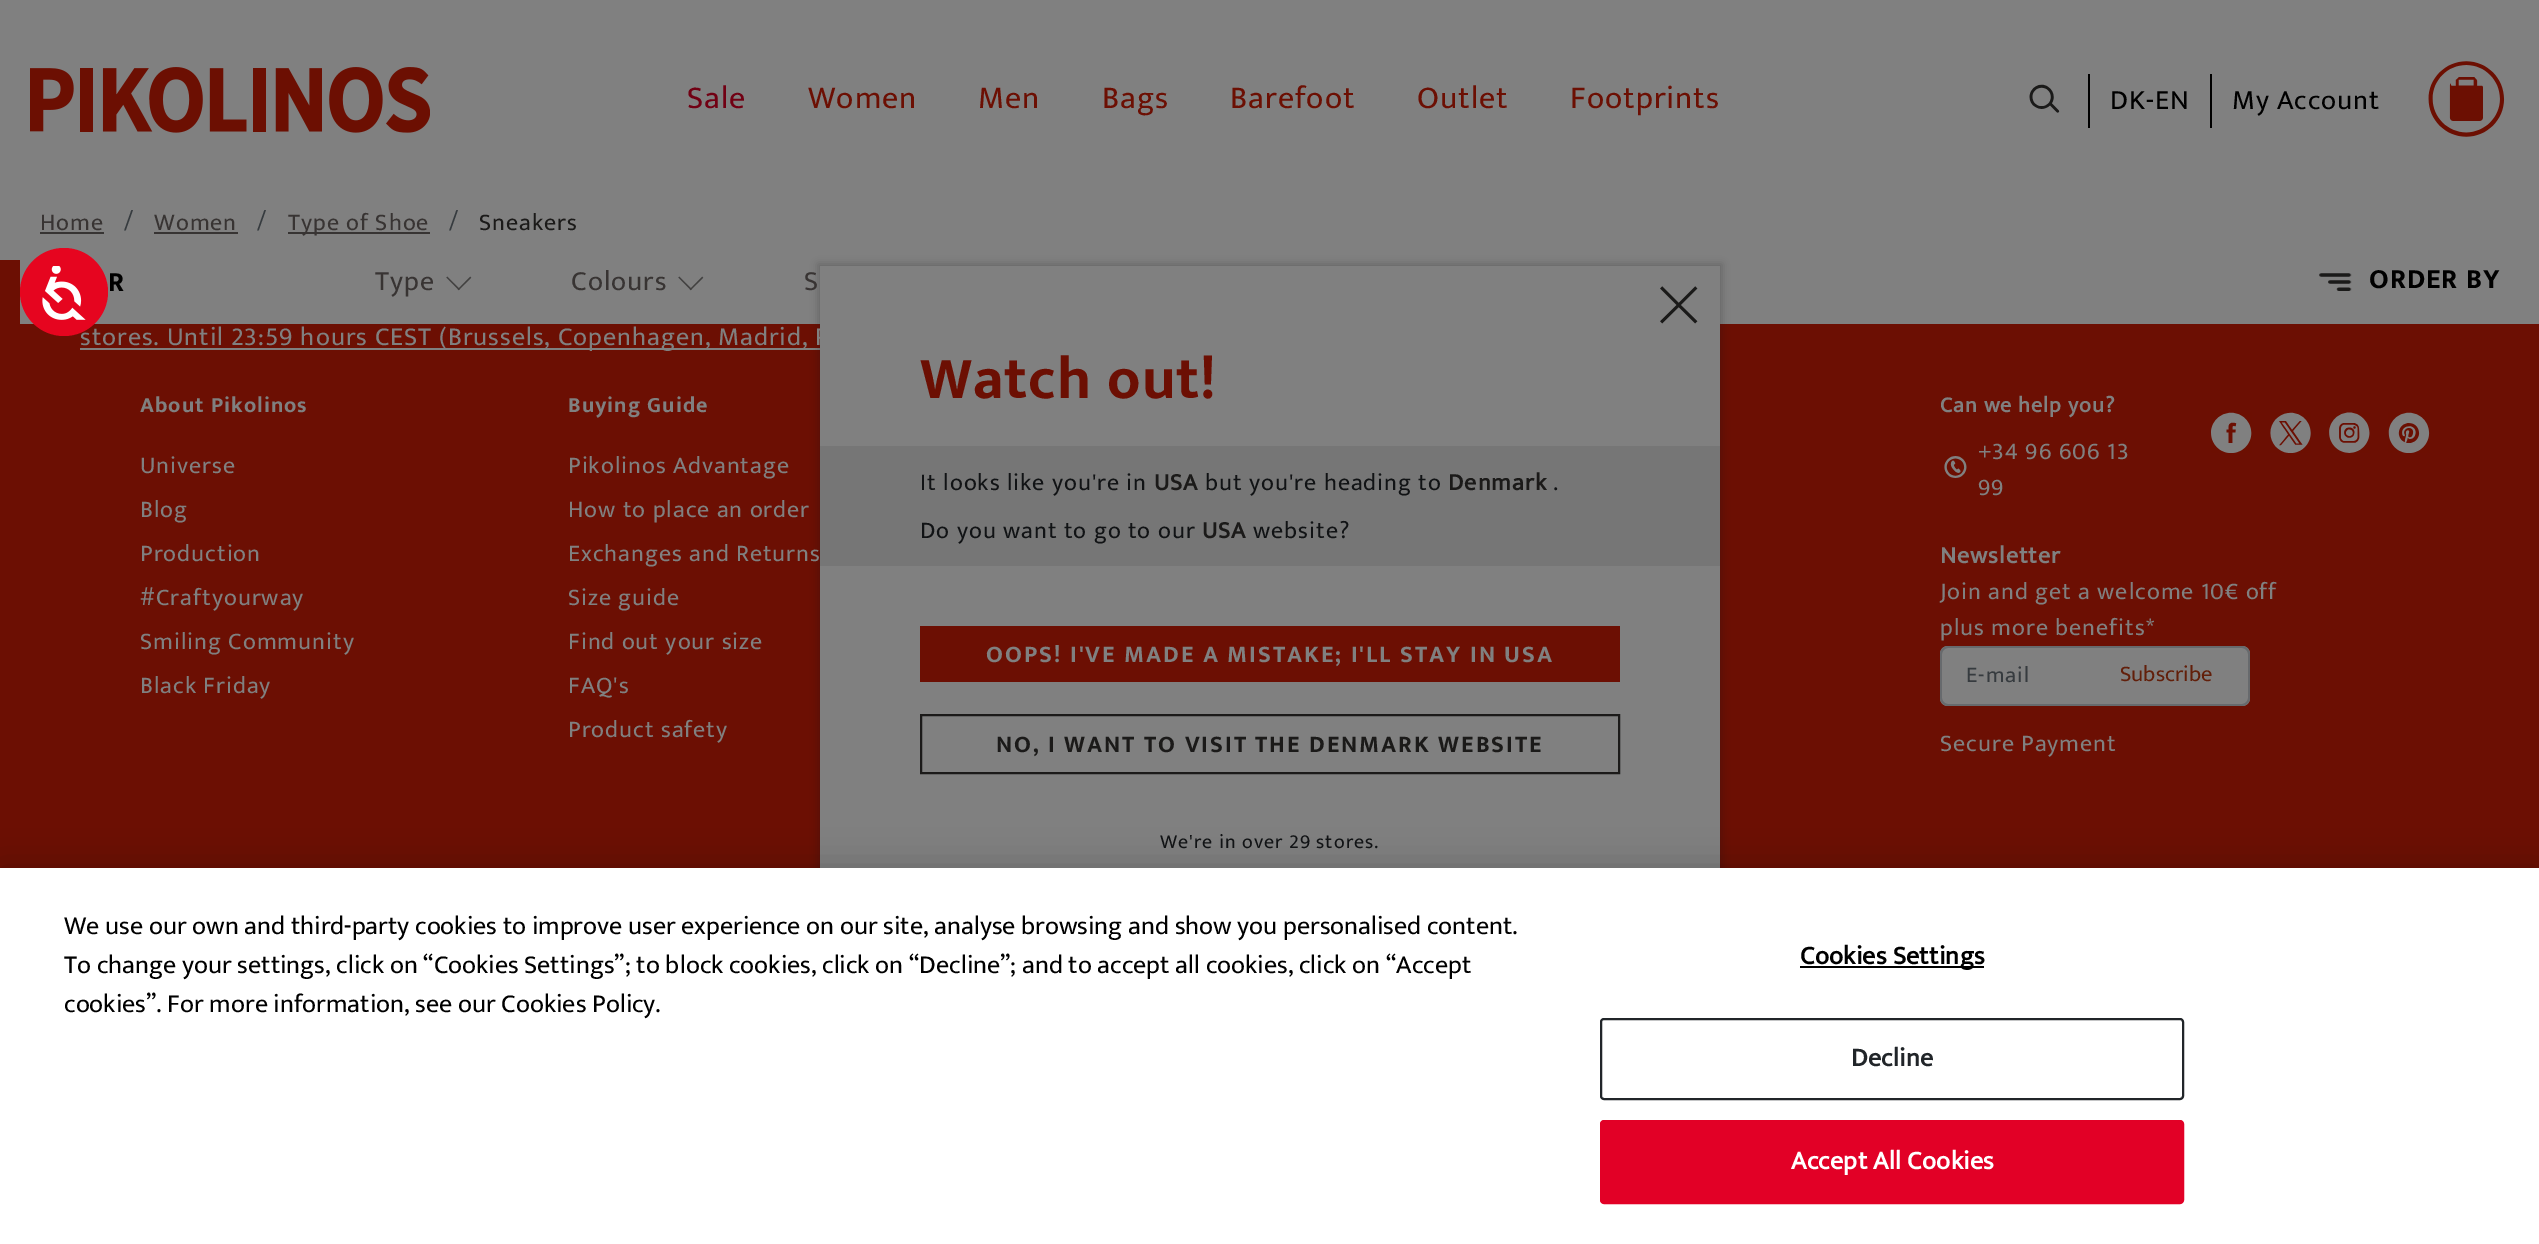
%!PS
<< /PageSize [2539 1244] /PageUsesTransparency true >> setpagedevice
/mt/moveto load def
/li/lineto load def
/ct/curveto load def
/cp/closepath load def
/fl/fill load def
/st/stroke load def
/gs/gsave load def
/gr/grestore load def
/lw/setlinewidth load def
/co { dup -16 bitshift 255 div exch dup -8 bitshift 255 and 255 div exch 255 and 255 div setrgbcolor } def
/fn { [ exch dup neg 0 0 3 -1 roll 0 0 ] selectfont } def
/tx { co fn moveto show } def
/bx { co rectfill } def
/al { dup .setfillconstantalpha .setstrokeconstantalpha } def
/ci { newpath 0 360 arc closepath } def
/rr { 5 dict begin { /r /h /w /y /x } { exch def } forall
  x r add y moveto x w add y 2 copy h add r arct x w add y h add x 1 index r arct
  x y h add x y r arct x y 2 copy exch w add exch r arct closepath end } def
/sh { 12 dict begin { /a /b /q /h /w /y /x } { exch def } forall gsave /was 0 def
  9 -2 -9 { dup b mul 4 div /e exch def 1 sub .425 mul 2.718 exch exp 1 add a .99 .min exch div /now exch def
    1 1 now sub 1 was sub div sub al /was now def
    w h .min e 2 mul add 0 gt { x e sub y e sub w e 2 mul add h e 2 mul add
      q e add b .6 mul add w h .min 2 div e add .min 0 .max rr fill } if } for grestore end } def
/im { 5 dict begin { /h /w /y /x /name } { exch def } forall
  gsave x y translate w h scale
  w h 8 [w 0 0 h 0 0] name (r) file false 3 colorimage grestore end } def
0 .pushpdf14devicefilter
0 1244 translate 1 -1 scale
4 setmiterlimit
0 0 2539 1244 16#6C0F03 bx
0 0 2539 260 16#808080 bx
(media/1.raw) 30 67 400 66 im
(media/2.raw) 2029 84 31 29 im
2088 74 2 54 16#000000 bx
2210 74 2 54 16#000000 bx
(media/3.raw) 2428 61 77 76 im
40 232 64 2 16#373433 bx
154 232 84 2 16#373433 bx
288 232 142 2 16#373433 bx
20 260 2519 64 16#808080 bx
(media/4.raw) 446 276 26 15 im
(media/4.raw) 678 276 26 15 im
(media/5.raw) 2319 273 33 18 im
80 348 740 2 16#808080 bx
(media/6.raw) 1944 456 23 22 im
(media/7.raw) 2211 412 41 41 im
(media/8.raw) 2270 412 41 41 im
(media/9.raw) 2329 412 41 41 im
(media/10.raw) 2388 412 42 41 im
1948 646 mt 2084 646 li 2084 706 li 1948 706 li 1943.5 706 1940 702.5 1940 698 ct 1940 654 li 1940 649.5 1943.5 646 1948 646 ct cp fl
16#676A6D co
1948 646 mt 2084 646 li 2084 706 li 1948 706 li 1944 706 1940 702 1940 698 ct 1940 654 li 1940 650 1944 646 1948 646 ct cp 1948 648 mt 2084 648 li 2084 704 li 1948 704 li 1945 704 1942 701 1942 698 ct 1942 654 li 1942 651 1945 648 1948 648 ct cp eofill
16#808080 co
2084 646 mt 2242 646 li 2246.5 646 2250 649.5 2250 654 ct 2250 698 li 2250 702.5 2246.5 706 2242 706 ct 2084 706 li cp fl
16#676A6D co
2084 646 mt 2242 646 li 2246 646 2250 650 2250 654 ct 2250 698 li 2250 702 2246 706 2242 706 ct 2084 706 li cp 2084 648 mt 2242 648 li 2245 648 2248 651 2248 654 ct 2248 698 li 2248 701 2245 704 2242 704 ct 2084 704 li cp eofill
16#171717 co
818 264 904 716 0 4 .25 sh
820 266 900 602 16#808080 bx
(media/12.raw) 1660 286 38 38 im
820 446 900 120 16#767676 bx
920 626 700 56 16#6C0F03 bx
16#1B1A19 co
2 lw
921 715 698 58 rectstroke
16#000000 co
0 868 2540 376 0 18 .2 sh
0 868 2539 376 16#FFFFFF bx
1800 966 184 2 16#000000 bx
16#212529 co
1601 1019 582 80 3 rr st
16#E20026 co
1601 1121 582 82 3 rr gs fl gr
st
/Mukta-Regular 32 fn
16#710013 co
687 108 mt 1 0 (Sale) ashow
16#6C0F03 co
808 108 mt 1 0 (Women) ashow
978 108 mt 1 0 (Men) ashow
1102 108 mt 1 0 (Bags) ashow
1230 108 mt 1 0 (Barefoot) ashow
1417 108 mt 1 0 (Outlet) ashow
1570 108 mt 1 0 (Footprints) ashow
/Mukta-Regular 28 fn
16#000000 co
2110 109 mt 1 0 (DK-EN) ashow
2232 109 mt 1 0 (My Account) ashow
/Mukta-Regular 24 fn
16#383433 co
40 230 mt 1 0 (Home) ashow
16#363B3F co
124 228 mt 1 0 (/) ashow
16#383433 co
154 230 mt 1 0 (Women) ashow
16#363B3F co
257 228 mt 1 0 (/) ashow
16#383433 co
288 230 mt 1 0 (Type of Shoe) ashow
16#363B3F co
449 228 mt 1 0 (/) ashow
16#1B1A19 co
479 230 mt 1 0 (Sneakers) ashow
/Mukta-Bold 28 fn
16#000000 co
108 291 mt 1 0 (R) ashow
/Mukta-Regular 28 fn
16#383433 co
375 290 mt 1 0 (Type) ashow
571 290 mt 1 0 (Colours) ashow
804 290 mt 1 0 (S) ashow
/Mukta-Bold 28 fn
16#000000 co
2369 288 mt 1 0 (ORDER BY) ashow
/Mukta-Regular 26 fn
16#808080 co
80 345 mt 1 0 (stores. Until 23:59 hours CEST \(Brussels, Copenhagen, Madrid, P) ashow
/Mukta-Bold 22 fn
140 412 mt 1 0 (About Pikolinos) ashow
/Mukta-Regular 24 fn
140 473 mt 1 0 (Universe) ashow
140 517 mt 1 0 (Blog) ashow
140 561 mt 1 0 (Production) ashow
140 605 mt 1 0 (#Craftyourway) ashow
140 649 mt 1 0 (Smiling Community) ashow
140 693 mt 1 0 (Black Friday) ashow
/Mukta-Bold 22 fn
568 412 mt 1 0 (Buying Guide) ashow
/Mukta-Regular 24 fn
568 473 mt 1 0 (Pikolinos Advantage) ashow
568 517 mt 1 0 (How to place an order) ashow
568 561 mt 1 0 (Exchanges and Returns) ashow
568 605 mt 1 0 (Size guide) ashow
568 649 mt 1 0 (Find out your size) ashow
568 693 mt 1 0 (FAQ's) ashow
568 737 mt 1 0 (Product safety) ashow
/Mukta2-Bold 22 fn
1940 412 mt 1 0 (Can we help you?) ashow
/Mukta-Regular 24 fn
1978 459 mt 1 0 (+34 96 606 13) ashow
1978 495 mt 1 0 (99) ashow
/Mukta2-Bold 24 fn
1940 563 mt 1 0 (Newsletter) ashow
/Mukta-Regular 24 fn
1940 599 mt 1 0 (Join and get a welcome 10€ off) ashow
1940 635 mt 1 0 (plus more benefits*) ashow
/Mukta-Regular 22.5 fn
16#363B3F co
1966 682 mt 1 0 (E-mail) ashow
(Subscribe) 2120 681 /Mukta-Regular 22.5 16#621F0A tx
/Mukta-Regular 24 fn
16#808080 co
1940 751 mt 1 0 (Secure Payment) ashow
16#E6051F co
64 292 44 ci fl
(media/11.raw) 42 266 44 54 im
/Mukta-Bold 60 fn
16#6C0F03 co
920 398 mt 1 0 (Watch out!) ashow
/Mukta-Regular 24 fn
16#111315 co
920 490 mt 1 0 (It looks like you're in) ashow
/Mukta2-Bold 24 fn
16#1B1A19 co
1154 490 mt 1 0 (USA) ashow
/Mukta-Regular 24 fn
16#111315 co
1205 490 mt 1 0 (but you're heading to) ashow
/Mukta2-Bold 24 fn
16#1B1A19 co
1448 490 mt 1 0 (Denmark) ashow
/Mukta-Regular 24 fn
16#111315 co
1553 490 mt 1 0 (.) ashow
920 538 mt 1 0 (Do you want to go to our) ashow
/Mukta2-Bold 24 fn
16#1B1A19 co
1202 538 mt 1 0 (USA) ashow
/Mukta-Regular 24 fn
16#111315 co
1253 538 mt 1 0 (website?) ashow
/Mukta-Bold 24 fn
16#808080 co
986 662 mt 2 0 (OOPS! I'VE MADE A MISTAKE; I'LL STAY IN USA) ashow
16#1B1A19 co
996 752 mt 2 0 (NO, I WANT TO VISIT THE DENMARK WEBSITE) ashow
/Mukta-Regular 20 fn
16#111315 co
1160 848 mt 1 0 (We're in over 29 stores.) ashow
(We use our own and third-party cookies to improve user experience on our site, analyse browsing and show you personalised content.) 64 934 /Mukta-Regular 26.02 16#000000 tx
(To change your settings, click on “Cookies Settings”; to block cookies, click on “Decline”; and to accept all cookies, click on “Accept) 64 973 /Mukta-Regular 26.02 16#000000 tx
(cookies”. For more information, see our Cookies Policy.) 64 1012 /Mukta-Regular 26.02 16#000000 tx
/Mukta2-Bold 26.02 fn
1800 964 mt .25 0 (Cookies Settings) ashow
16#212529 co
1851 1066 mt .25 0 (Decline) ashow
16#FFFFFF co
1791 1169 mt .25 0 (Accept All Cookies) ashow
.poppdf14devicefilter showpage
